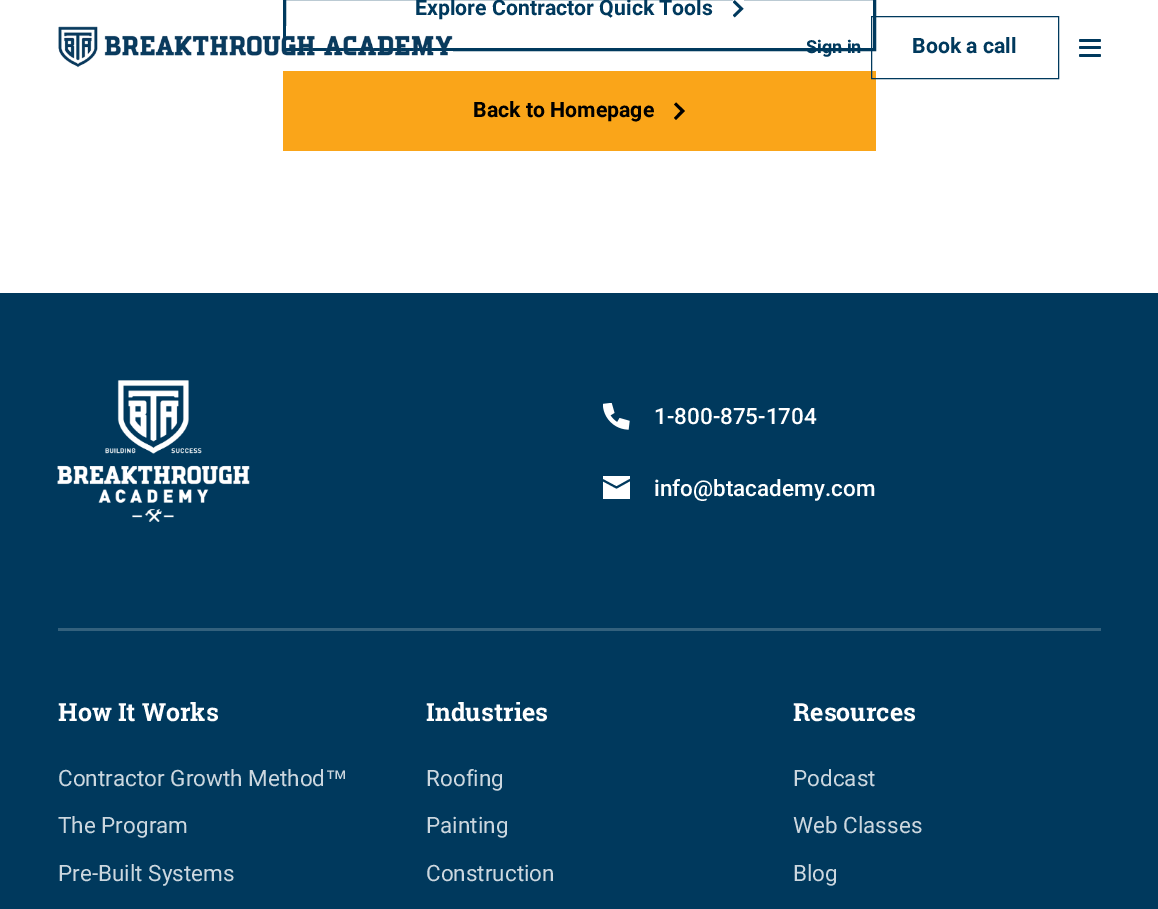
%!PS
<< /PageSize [1158 909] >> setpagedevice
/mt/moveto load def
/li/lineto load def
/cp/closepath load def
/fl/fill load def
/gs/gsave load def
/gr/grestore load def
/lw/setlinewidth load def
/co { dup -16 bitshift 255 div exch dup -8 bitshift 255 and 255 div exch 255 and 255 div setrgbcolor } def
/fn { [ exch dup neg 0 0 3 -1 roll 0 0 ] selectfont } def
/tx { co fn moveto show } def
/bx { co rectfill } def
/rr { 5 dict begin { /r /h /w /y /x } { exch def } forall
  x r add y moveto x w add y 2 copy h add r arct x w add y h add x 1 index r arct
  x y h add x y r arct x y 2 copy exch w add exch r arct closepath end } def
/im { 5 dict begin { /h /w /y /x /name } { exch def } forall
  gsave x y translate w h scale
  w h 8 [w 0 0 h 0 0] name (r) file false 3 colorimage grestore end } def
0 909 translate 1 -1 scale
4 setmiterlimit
0 0 1158 909 16#FFFFFF bx
16#00395D co
3 lw
284.5 -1.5 590 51 rectstroke
(media/1.raw) 733 0 11 18 im
283 71 593 80 16#FAA519 bx
16#000000 co
676 120 mt 685 111 li 676 102.5 li 674 104.5 li 680.5 111 li 674 118 li cp fl
(media/2.raw) 58 26 395 42 im
16#00395D co
1 lw
871.5 16.5 187 62 rectstroke
1079 39 22 3 1.5 rr fl
1079 46 22 3 1.5 rr fl
1079 54 22 3 1.5 rr fl
0 293 1158 616 16#00395D bx
(media/3.raw) 57 380 193 142 im
(media/4.raw) 603 403 27 27 im
gs
603 474 27 27 rectclip
16#FFFFFF co
602.5 476 mt 630 476 li 630 478.5 li 616.5 486 li 602.5 478.5 li cp 602.5 481.5 mt 602.5 499 li 630 499 li 630 481.5 li 616.5 489 li cp eofill
gr
58 628 1043 3 16#33617D bx
(Explore Contractor Quick Tools) 415 15 /Roboto-Bold 21.25 16#00395D tx
(Back to Homepage) 473 117 /Roboto-Bold 21.25 16#000000 tx
(Sign in) 806 53 /Roboto-Bold 18 16#00395D tx
(Book a call) 912 53 /Roboto-Bold 21.25 16#00395D tx
(1-800-875-1704) 654 424 /Roboto-Medium 22.5 16#FFFFFF tx
(info@btacademy.com) 654 496 /Roboto-Medium 22.5 16#FFFFFF tx
(How It Works) 58 721 /RobotoSlab-Bold 25 16#FFFFFF tx
(Contractor Growth Method) 58 786 /Roboto-Regular 22.5 16#CCD7DF tx
(™) 325 786 /LiberationSans-Regular 22.5 16#CCD7DF tx
(The Program) 58 833 /Roboto-Regular 22.5 16#CCD7DF tx
(Pre-Built Systems) 58 881 /Roboto-Regular 22.5 16#CCD7DF tx
(Industries) 426 721 /RobotoSlab-Bold 25 16#FFFFFF tx
(Roofing) 426 786 /Roboto-Regular 22.5 16#CCD7DF tx
(Painting) 426 833 /Roboto-Regular 22.5 16#CCD7DF tx
(Construction) 426 881 /Roboto-Regular 22.5 16#CCD7DF tx
(Resources) 793 721 /RobotoSlab-Bold 25 16#FFFFFF tx
(Podcast) 793 786 /Roboto-Regular 22.5 16#CCD7DF tx
(Web Classes) 793 833 /Roboto-Regular 22.5 16#CCD7DF tx
(Blog) 793 881 /Roboto-Regular 22.5 16#CCD7DF tx
showpage
